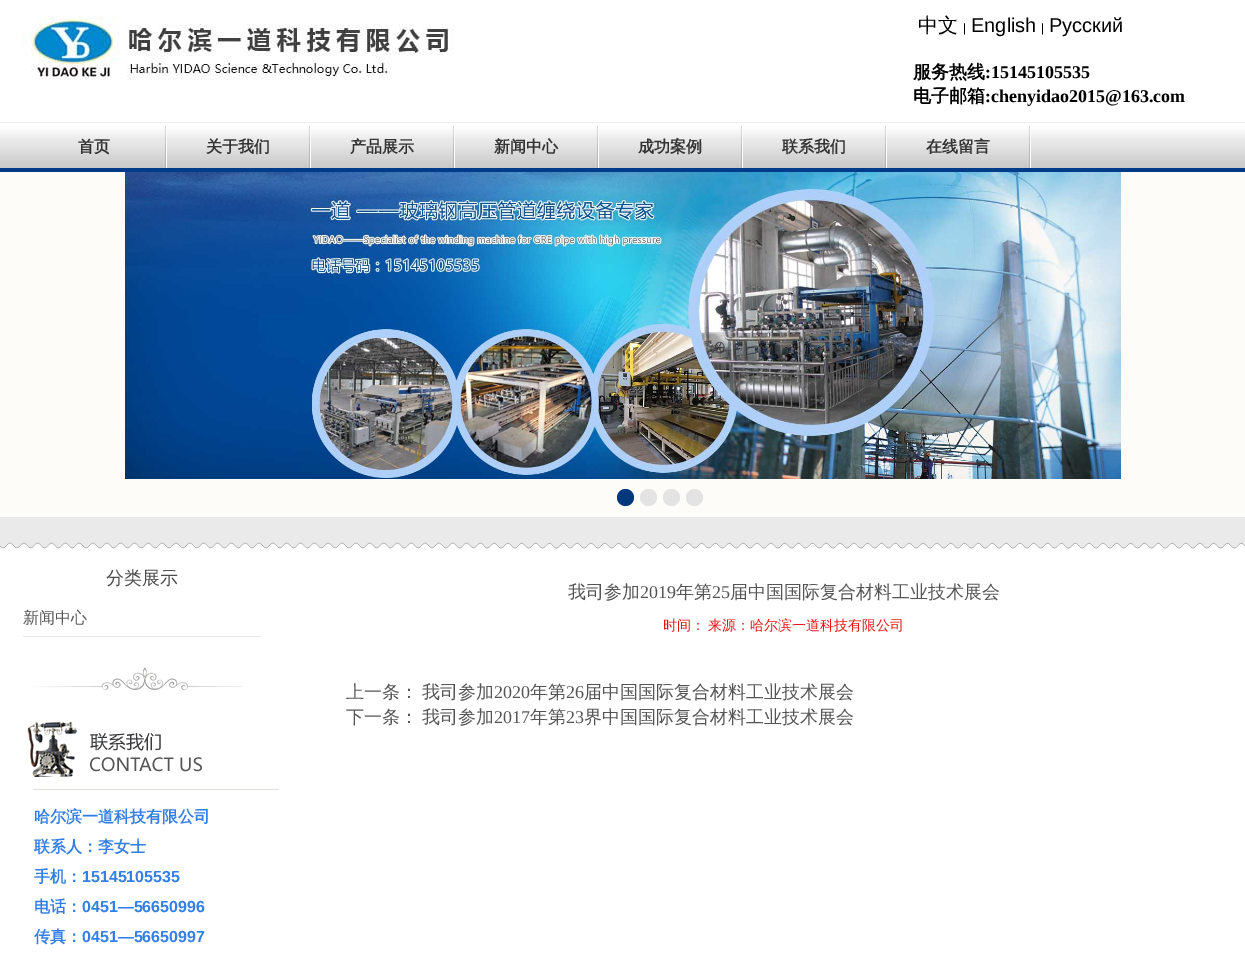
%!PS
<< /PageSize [1245 953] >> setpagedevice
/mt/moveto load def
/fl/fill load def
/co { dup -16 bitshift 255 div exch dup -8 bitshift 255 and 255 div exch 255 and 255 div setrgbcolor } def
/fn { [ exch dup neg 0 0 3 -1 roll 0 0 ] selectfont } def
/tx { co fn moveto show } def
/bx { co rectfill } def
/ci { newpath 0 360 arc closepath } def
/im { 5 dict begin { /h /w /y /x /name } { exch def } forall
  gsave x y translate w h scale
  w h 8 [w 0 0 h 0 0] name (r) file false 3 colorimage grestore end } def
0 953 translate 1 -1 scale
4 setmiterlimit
0 0 1245 953 16#FFFFFF bx
(media/1.raw) 23 15 431 65 im
(media/2.raw) 0 122 1245 50 im
(media/3.raw) 165 126 2 42 im
(media/3.raw) 309 126 2 42 im
(media/3.raw) 453 126 2 42 im
(media/3.raw) 597 126 2 42 im
(media/3.raw) 741 126 2 42 im
(media/3.raw) 885 126 2 42 im
(media/3.raw) 1029 126 2 42 im
0 172 1245 342 16#FDFCF8 bx
(media/4.raw) 125 172 996 307 im
16#00387E co
625.5 497.5 8.5 ci fl
16#E3E3E3 co
648.5 497.5 8.5 ci fl
671.5 497.5 8.5 ci fl
694.5 497.5 8.5 ci fl
(media/5.raw) 0 517 1245 32 im
23 636 238 1 16#E8E7E6 bx
(media/6.raw) 27 667 252 123 im
(中文) 918 32 /WenQuanYiZenHei-Medium 20 16#000000 tx
(|) 963 32 /LiberationSans-Regular 12 16#000000 tx
(English) 971 32 /LiberationSans-Regular 20 16#000000 tx
(|) 1041 32 /LiberationSans-Regular 12 16#000000 tx
(Русский) 1049 32 /LiberationSans-Regular 20 16#000000 tx
(服务热线) 913 78 /WenQuanYiZenHei-Bold 18 16#000000 tx
(:15145105535) 985 78 /LiberationSerif-Bold 18 16#000000 tx
(电子邮箱) 913 102 /WenQuanYiZenHei-Bold 18 16#000000 tx
(:chenyidao2015@163.com) 985 102 /LiberationSerif-Bold 18 16#000000 tx
(首页) 78 152 /WenQuanYiZenHei-Bold 16 16#333333 tx
(关于我们) 206 152 /WenQuanYiZenHei-Bold 16 16#333333 tx
(产品展示) 350 152 /WenQuanYiZenHei-Bold 16 16#333333 tx
(新闻中心) 494 152 /WenQuanYiZenHei-Bold 16 16#333333 tx
(成功案例) 638 152 /WenQuanYiZenHei-Bold 16 16#333333 tx
(联系我们) 782 152 /WenQuanYiZenHei-Bold 16 16#333333 tx
(在线留言) 926 152 /WenQuanYiZenHei-Bold 16 16#333333 tx
(分类展示) 106 584 /WenQuanYiZenHei-Medium 18 16#4C4B4B tx
(新闻中心) 23 623 /WenQuanYiZenHei-Medium 16 16#555555 tx
(哈尔滨一道科技有限公司) 34 822 /WenQuanYiZenHei-Bold 16 16#337FE5 tx
(联系人：李女士) 34 852 /WenQuanYiZenHei-Bold 16 16#337FE5 tx
(手机：) 34 882 /WenQuanYiZenHei-Bold 16 16#337FE5 tx
(15145105535) 82 882 /LiberationSans-Bold 16 16#337FE5 tx
(电话：) 34 912 /WenQuanYiZenHei-Bold 16 16#337FE5 tx
(0451—56650996) 82 912 /LiberationSans-Bold 16 16#337FE5 tx
(传真：) 34 942 /WenQuanYiZenHei-Bold 16 16#337FE5 tx
(0451—56650997) 82 942 /LiberationSans-Bold 16 16#337FE5 tx
(我司参加) 568 598 /WenQuanYiZenHei-Medium 18 16#555555 tx
(2019) 640 598 /LiberationSerif-Regular 18 16#555555 tx
(年第) 676 598 /WenQuanYiZenHei-Medium 18 16#555555 tx
(25) 712 598 /LiberationSerif-Regular 18 16#555555 tx
(届中国国际复合材料工业技术展会) 730 598 /WenQuanYiZenHei-Medium 18 16#555555 tx
/WenQuanYiZenHei-Medium 14 fn
16#E81515 co
663 630 mt -1 0 32 (时间： 来源：哈尔滨一道科技有限公司) widthshow
(上一条：) 346 698 /WenQuanYiZenHei-Medium 18 16#555555 tx
(我司参加) 422 698 /WenQuanYiZenHei-Medium 18 16#555555 tx
(2020) 494 698 /LiberationSerif-Regular 18 16#555555 tx
(年第) 530 698 /WenQuanYiZenHei-Medium 18 16#555555 tx
(26) 566 698 /LiberationSerif-Regular 18 16#555555 tx
(届中国国际复合材料工业技术展会) 584 698 /WenQuanYiZenHei-Medium 18 16#555555 tx
(下一条：) 346 723 /WenQuanYiZenHei-Medium 18 16#555555 tx
(我司参加) 422 723 /WenQuanYiZenHei-Medium 18 16#555555 tx
(2017) 494 723 /LiberationSerif-Regular 18 16#555555 tx
(年第) 530 723 /WenQuanYiZenHei-Medium 18 16#555555 tx
(23) 566 723 /LiberationSerif-Regular 18 16#555555 tx
(界中国国际复合材料工业技术展会) 584 723 /WenQuanYiZenHei-Medium 18 16#555555 tx
showpage
